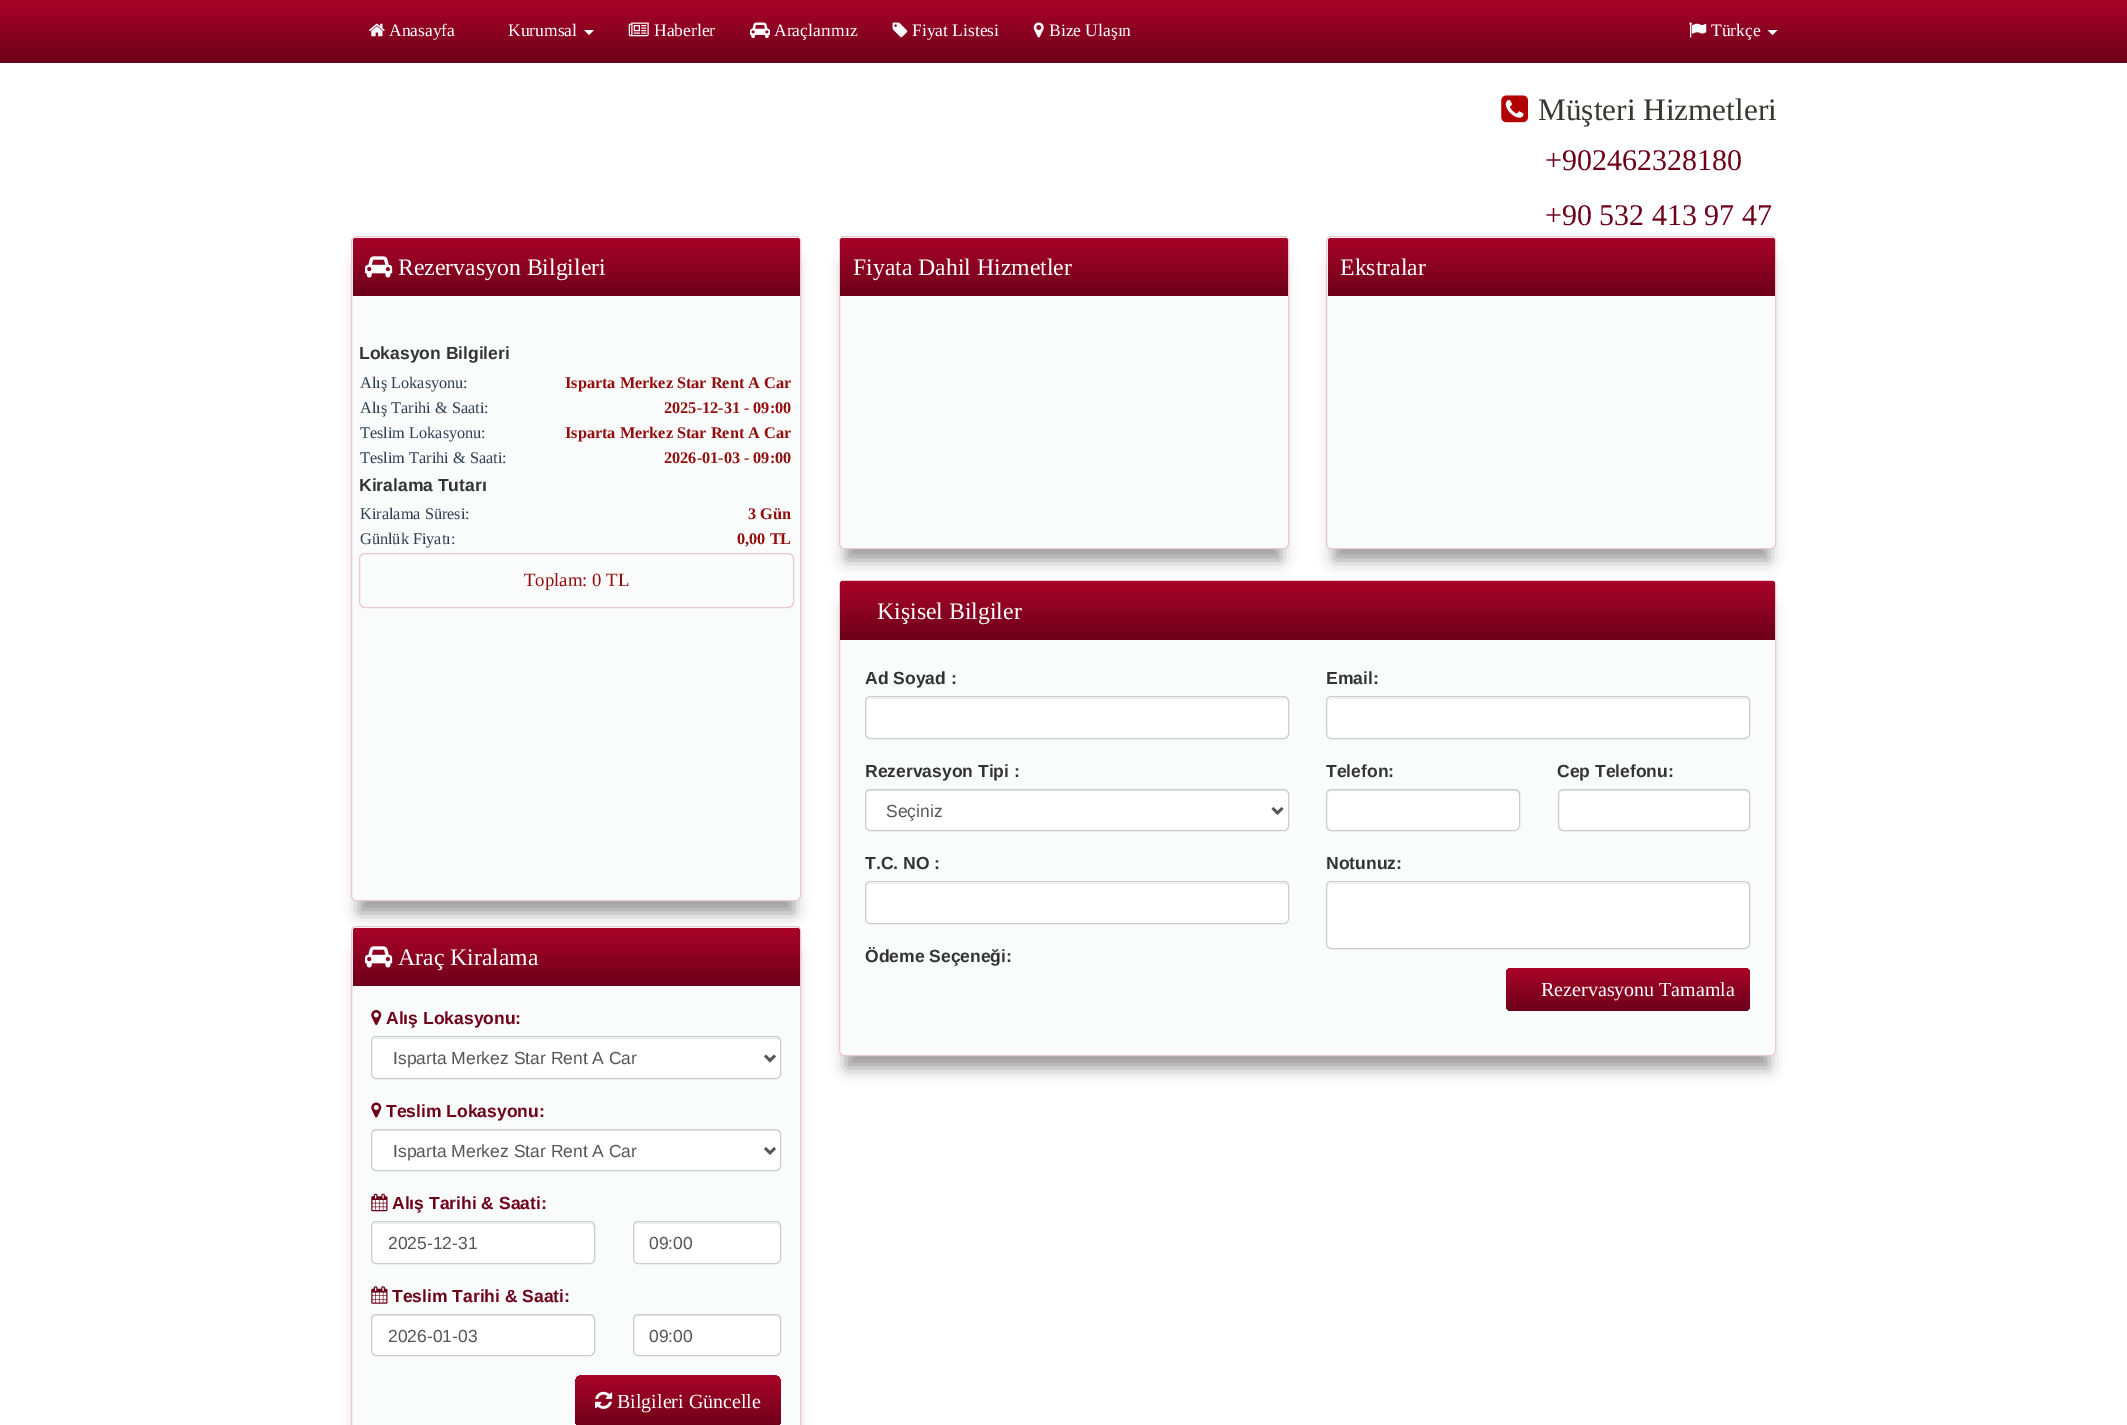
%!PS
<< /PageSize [2127 1425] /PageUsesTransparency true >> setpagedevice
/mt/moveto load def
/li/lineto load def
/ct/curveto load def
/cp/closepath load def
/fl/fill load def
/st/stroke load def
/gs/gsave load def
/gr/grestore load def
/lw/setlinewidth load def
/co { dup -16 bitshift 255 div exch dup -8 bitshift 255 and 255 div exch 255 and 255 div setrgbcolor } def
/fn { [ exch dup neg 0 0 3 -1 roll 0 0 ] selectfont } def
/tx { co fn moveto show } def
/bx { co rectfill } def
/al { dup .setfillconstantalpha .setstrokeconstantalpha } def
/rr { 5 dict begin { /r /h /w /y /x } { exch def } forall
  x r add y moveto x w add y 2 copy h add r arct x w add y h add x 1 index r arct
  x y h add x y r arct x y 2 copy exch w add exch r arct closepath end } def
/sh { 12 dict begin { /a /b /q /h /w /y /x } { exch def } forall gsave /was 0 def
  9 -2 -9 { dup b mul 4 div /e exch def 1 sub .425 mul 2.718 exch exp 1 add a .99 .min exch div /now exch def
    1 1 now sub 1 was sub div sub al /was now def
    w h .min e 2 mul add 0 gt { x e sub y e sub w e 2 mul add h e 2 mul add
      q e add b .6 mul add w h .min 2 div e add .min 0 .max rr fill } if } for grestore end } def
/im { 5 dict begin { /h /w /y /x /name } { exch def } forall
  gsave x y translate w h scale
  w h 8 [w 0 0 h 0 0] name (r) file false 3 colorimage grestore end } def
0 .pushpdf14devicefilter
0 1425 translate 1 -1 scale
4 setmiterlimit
0 0 2127 1425 16#FFFFFF bx
gs 0 0 mt 2127 0 li 2127 63 li 0 63 li cp clip newpath
<< /ShadingType 2 /ColorSpace /DeviceRGB /Coords [1064 0 1064 63] /Extend [true true] /Function << /FunctionType 3 /Domain [0 1] /Functions [<< /FunctionType 2 /Domain [0 1] /C0 [.663 .012 .161] /C1 [.561 .008 .133] /N 1 >> << /FunctionType 2 /Domain [0 1] /C0 [.561 .008 .133] /C1 [.427 0 .098] /N 1 >>] /Bounds [.44] /Encode [0 1 0 1] >> >> shfill gr
(media/1.raw) 369 23 16 14 im
584 30 mt 594 30 li 589 35 li cp fl
(media/2.raw) 628 22 21 15 im
(media/3.raw) 750 22 20 17 im
(media/4.raw) 892 22 16 16 im
(media/5.raw) 1033 22 11 16 im
(media/6.raw) 1689 22 18 16 im
1767.5 30 mt 1777.5 30 li 1772.5 35 li cp fl
(media/7.raw) 1501 95 28 28 im
16#999999 co
359 263 435 650 0 7.5 1 sh
16#FAFBFB co
351.5 236.5 449 664 4.5 rr gs fl gr
16#E9C7CF co
st
gs 358 238 mt 795 238 li 798 238 800 240 800 243 ct 800 296 li 353 296 li 353 243 li 353 240 355 238 358 238 ct cp clip newpath
<< /ShadingType 2 /ColorSpace /DeviceRGB /Coords [576 237 576 296] /Extend [true true] /Function << /FunctionType 3 /Domain [0 1] /Functions [<< /FunctionType 2 /Domain [0 1] /C0 [.663 .012 .161] /C1 [.561 .008 .133] /N 1 >> << /FunctionType 2 /Domain [0 1] /C0 [.561 .008 .133] /C1 [.427 0 .098] /N 1 >>] /Bounds [.44] /Encode [0 1 0 1] >> >> shfill gr
(media/8.raw) 365 256 28 22 im
359.5 553.5 434 54 5.5 rr st
16#999999 co
359 953 435 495 0 7.5 1 sh
16#FAFBFB co
351.5 926.5 449 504 4.5 rr gs fl gr
16#E9C7CF co
st
gs 358 928 mt 795 928 li 798 928 800 930 800 933 ct 800 986 li 353 986 li 353 933 li 353 930 355 928 358 928 ct cp clip newpath
<< /ShadingType 2 /ColorSpace /DeviceRGB /Coords [576 928 576 986] /Extend [true true] /Function << /FunctionType 3 /Domain [0 1] /Functions [<< /FunctionType 2 /Domain [0 1] /C0 [.663 .012 .161] /C1 [.561 .008 .133] /N 1 >> << /FunctionType 2 /Domain [0 1] /C0 [.561 .008 .133] /C1 [.427 0 .098] /N 1 >>] /Bounds [.44] /Encode [0 1 0 1] >> >> shfill gr
(media/9.raw) 365 946 28 22 im
(media/10.raw) 371 1010 11 15 im
16#FFFFFF co
371 1036 410 43 5 rr fl
16#ECECEC co
376 1039 mt 776 1039 li 778 1039 780 1040 780 1042 ct 780 1040 778 1038 776 1038 ct 377 1038 li 376 1038 375 1039 374 1039 ct cp fl
16#CCCCCC co
371.5 1036.5 409 42 4.5 rr st
16#555555 co
2.5 lw
765 1055.5 mt 770 1060.5 li 775 1055.5 li st
(media/11.raw) 371 1102 11 16 im
16#FFFFFF co
371 1129 410 42 5 rr fl
16#ECECEC co
376 1131 mt 776 1131 li 778 1131 780 1133 780 1135 ct 780 1134 li 780 1132 778 1130 776 1130 ct 377 1130 li 376 1130 374 1131 374 1132 ct cp fl
16#CCCCCC co
1 lw
371.5 1129.5 409 41 4.5 rr st
16#555555 co
2.5 lw
765 1148 mt 770 1153 li 775 1148 li st
(media/12.raw) 371 1193 17 19 im
16#FFFFFF co
371 1221 224 43 5 rr fl
16#ECECEC co
376 1224 mt 590 1224 li 592 1224 594 1225 594 1228 ct 594 1227 li 594 1225 592 1223 590 1223 ct 377 1223 li 376 1223 375 1224 374 1224 ct cp fl
16#CCCCCC co
1 lw
371.5 1221.5 223 42 4.5 rr st
16#FFFFFF co
633 1221 148 43 5 rr fl
16#ECECEC co
638 1224 mt 776 1224 li 778 1224 780 1225 780 1228 ct 780 1227 li 780 1225 778 1223 776 1223 ct 638 1223 li 636 1223 634 1225 634 1227 ct 634 1228 li 634 1225 635 1224 638 1224 ct cp fl
16#CCCCCC co
633.5 1221.5 147 42 4.5 rr st
(media/13.raw) 371 1286 17 18 im
16#FFFFFF co
371 1314 224 42 5 rr fl
16#ECECEC co
376 1316 mt 590 1316 li 592 1316 594 1318 594 1320 ct 594 1319 li 594 1317 592 1315 590 1315 ct 377 1315 li 376 1315 374 1316 374 1317 ct cp fl
16#CCCCCC co
371.5 1314.5 223 41 4.5 rr st
16#FFFFFF co
633 1314 148 42 5 rr fl
16#ECECEC co
638 1316 mt 776 1316 li 778 1316 780 1318 780 1320 ct 780 1319 li 780 1317 778 1315 776 1315 ct 638 1315 li 636 1315 634 1317 634 1319 ct 634 1320 li 634 1318 635 1316 638 1316 ct cp fl
16#CCCCCC co
633.5 1314.5 147 41 4.5 rr st
gs 575 1375 206 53 8 rr clip newpath
<< /ShadingType 2 /ColorSpace /DeviceRGB /Coords [678 1375 678 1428] /Extend [true true] /Function << /FunctionType 3 /Domain [0 1] /Functions [<< /FunctionType 2 /Domain [0 1] /C0 [.663 .012 .161] /C1 [.561 .008 .133] /N 1 >> << /FunctionType 2 /Domain [0 1] /C0 [.561 .008 .133] /C1 [.427 0 .098] /N 1 >>] /Bounds [.44] /Encode [0 1 0 1] >> >> shfill gr
(media/14.raw) 595 1391 18 18 im
16#999999 co
846 263 435 297 0 7.5 1 sh
16#FAFBFB co
839.5 236.5 449 312 4.5 rr gs fl gr
16#E9C7CF co
st
gs 845 238 mt 1283 238 li 1286 238 1288 240 1288 243 ct 1288 296 li 840 296 li 840 243 li 840 240 842 238 845 238 ct cp clip newpath
<< /ShadingType 2 /ColorSpace /DeviceRGB /Coords [1064 237 1064 296] /Extend [true true] /Function << /FunctionType 3 /Domain [0 1] /Functions [<< /FunctionType 2 /Domain [0 1] /C0 [.663 .012 .161] /C1 [.561 .008 .133] /N 1 >> << /FunctionType 2 /Domain [0 1] /C0 [.561 .008 .133] /C1 [.427 0 .098] /N 1 >>] /Bounds [.44] /Encode [0 1 0 1] >> >> shfill gr
16#999999 co
1334 263 435 297 0 7.5 1 sh
16#FAFBFB co
1326.5 236.5 449 312 4.5 rr gs fl gr
16#E9C7CF co
st
gs 1333 238 mt 1770 238 li 1773 238 1775 240 1775 243 ct 1775 296 li 1328 296 li 1328 243 li 1328 240 1330 238 1333 238 ct cp clip newpath
<< /ShadingType 2 /ColorSpace /DeviceRGB /Coords [1551 237 1551 296] /Extend [true true] /Function << /FunctionType 3 /Domain [0 1] /Functions [<< /FunctionType 2 /Domain [0 1] /C0 [.663 .012 .161] /C1 [.561 .008 .133] /N 1 >> << /FunctionType 2 /Domain [0 1] /C0 [.561 .008 .133] /C1 [.427 0 .098] /N 1 >>] /Bounds [.44] /Encode [0 1 0 1] >> >> shfill gr
16#999999 co
846 606 923 462 0 7.5 1 sh
16#FAFBFB co
839.5 580.5 936 475 4.5 rr gs fl gr
16#E9C7CF co
st
gs 845 581 mt 1770 581 li 1773 581 1775 583 1775 586 ct 1775 640 li 840 640 li 840 586 li 840 583 842 581 845 581 ct cp clip newpath
<< /ShadingType 2 /ColorSpace /DeviceRGB /Coords [1308 581 1308 640] /Extend [true true] /Function << /FunctionType 3 /Domain [0 1] /Functions [<< /FunctionType 2 /Domain [0 1] /C0 [.663 .012 .161] /C1 [.561 .008 .133] /N 1 >> << /FunctionType 2 /Domain [0 1] /C0 [.561 .008 .133] /C1 [.427 0 .098] /N 1 >>] /Bounds [.44] /Encode [0 1 0 1] >> >> shfill gr
16#FFFFFF co
865 696 424 43 5 rr fl
16#ECECEC co
870 699 mt 1284 699 li 1286 699 1288 700 1288 702 ct 1288 700 1286 698 1284 698 ct 870 698 li 868 698 866 700 866 702 ct 866 700 868 699 870 699 ct cp fl
16#CCCCCC co
865.5 696.5 423 42 4.5 rr st
16#FFFFFF co
865 789 424 42 5 rr fl
16#ECECEC co
870 791 mt 1284 791 li 1286 791 1288 793 1288 795 ct 1288 794 li 1288 792 1286 790 1284 790 ct 870 790 li 868 790 866 792 866 794 ct 866 795 li 866 793 868 791 870 791 ct cp fl
16#CCCCCC co
865.5 789.5 423 41 4.5 rr st
16#555555 co
2.5 lw
1272.5 808 mt 1277.5 813 li 1282.5 808 li st
16#FFFFFF co
865 881 424 43 5 rr fl
16#ECECEC co
870 884 mt 1284 884 li 1286 884 1288 885 1288 888 ct 1288 887 li 1288 885 1286 883 1284 883 ct 870 883 li 868 883 866 885 866 887 ct 866 888 li 866 885 868 884 870 884 ct cp fl
16#CCCCCC co
1 lw
865.5 881.5 423 42 4.5 rr st
16#FFFFFF co
1326 696 424 43 5 rr fl
16#ECECEC co
1331 699 mt 1745 699 li 1747 699 1749 700 1749 702 ct 1749 700 1747 698 1745 698 ct 1332 698 li 1331 698 1329 699 1329 700 ct cp fl
16#CCCCCC co
1326.5 696.5 423 42 4.5 rr st
16#FFFFFF co
1326 789 194 42 5 rr fl
16#ECECEC co
1331 791 mt 1515 791 li 1517 791 1519 793 1519 795 ct 1519 792 1518 790 1515 790 ct 1331 790 li 1329 791 1328 793 1328 795 ct 1328 793 1329 791 1331 791 ct cp fl
16#CCCCCC co
1326.5 789.5 193 41 4.5 rr st
16#FFFFFF co
1558 789 192 42 5 rr fl
16#ECECEC co
1562 791 mt 1745 791 li 1747 791 1749 793 1749 795 ct 1749 792 1748 790 1745 790 ct 1562 790 li 1560 791 1559 793 1559 795 ct 1559 793 1560 791 1562 791 ct cp fl
16#CCCCCC co
1558.5 789.5 191 41 4.5 rr st
16#FFFFFF co
1326 881 424 68 5 rr fl
16#ECECEC co
1331 884 mt 1745 884 li 1747 884 1749 885 1749 888 ct 1749 887 li 1749 885 1747 883 1745 883 ct 1332 883 li 1330 883 1328 885 1328 887 ct 1328 888 li 1328 885 1329 884 1331 884 ct cp fl
16#CCCCCC co
1326.5 881.5 423 67 4.5 rr st
gs 1506 968 244 43 5 rr clip newpath
<< /ShadingType 2 /ColorSpace /DeviceRGB /Coords [1628 968 1628 1011] /Extend [true true] /Function << /FunctionType 3 /Domain [0 1] /Functions [<< /FunctionType 2 /Domain [0 1] /C0 [.663 .012 .161] /C1 [.561 .008 .133] /N 1 >> << /FunctionType 2 /Domain [0 1] /C0 [.561 .008 .133] /C1 [.427 0 .098] /N 1 >>] /Bounds [.44] /Encode [0 1 0 1] >> >> shfill gr
(Anasayfa) 389 36 /LiberationSerif-Regular 17.5 16#FFFFFF tx
(Kurumsal) 508 36 /LiberationSerif-Regular 17.5 16#FFFFFF tx
(Haberler) 654 36 /LiberationSerif-Regular 17.5 16#FFFFFF tx
(Araçlarımız) 774 36 /LiberationSerif-Regular 17.5 16#FFFFFF tx
(Fiyat Listesi) 912 36 /LiberationSerif-Regular 17.5 16#FFFFFF tx
(Bize Ulaşın) 1049 36 /LiberationSerif-Regular 17.5 16#FFFFFF tx
(Türkçe) 1711 36 /LiberationSerif-Regular 17.5 16#FFFFFF tx
(Müşteri Hizmetleri) 1538 120 /LiberationSerif-Regular 31.25 16#393633 tx
(+902462328180) 1545 170 /LiberationSerif-Regular 30 16#6D0019 tx
(+90 532 413 97 47) 1545 225 /LiberationSerif-Regular 30 16#6D0019 tx
(Rezervasyon Bilgileri) 398 275 /LiberationSerif-Regular 23.75 16#FFFFFF tx
(Lokasyon Bilgileri) 359 359 /LiberationSans-Bold 17.5 16#333333 tx
(Alış Lokasyonu:) 360 388 /LiberationSerif-Regular 16.25 16#2C3E50 tx
(Isparta Merkez Star Rent A Car) 565 388 /LiberationSerif-Bold 16.25 16#940D0D tx
(Alış Tarihi & Saati:) 360 413 /LiberationSerif-Regular 16.25 16#2C3E50 tx
(2025-12-31 - 09:00) 664 413 /LiberationSerif-Bold 16.25 16#940D0D tx
(Teslim Lokasyonu:) 360 438 /LiberationSerif-Regular 16.25 16#2C3E50 tx
(Isparta Merkez Star Rent A Car) 565 438 /LiberationSerif-Bold 16.25 16#940D0D tx
(Teslim Tarihi & Saati:) 360 463 /LiberationSerif-Regular 16.25 16#2C3E50 tx
(2026-01-03 - 09:00) 664 463 /LiberationSerif-Bold 16.25 16#940D0D tx
(Kiralama Tutarı) 359 491 /LiberationSans-Bold 17.5 16#333333 tx
(Kiralama Süresi:) 360 519 /LiberationSerif-Regular 16.25 16#2C3E50 tx
(3 Gün) 748 519 /LiberationSerif-Bold 16.25 16#940D0D tx
(Günlük Fiyatı:) 360 544 /LiberationSerif-Regular 16.25 16#2C3E50 tx
(0,00 TL) 737 544 /LiberationSerif-Bold 16.25 16#940D0D tx
(Toplam: 0 TL) 524 586 /LiberationSerif-Regular 18.75 16#940D0D tx
(Araç Kiralama) 398 965 /LiberationSerif-Regular 23.75 16#FFFFFF tx
(Alış Lokasyonu:) 386 1024 /LiberationSans-Bold 17.5 16#6D0019 tx
(Isparta Merkez Star Rent A Car) 393 1064 /LiberationSans-Regular 17.5 16#555555 tx
(Teslim Lokasyonu:) 386 1117 /LiberationSans-Bold 17.5 16#6D0019 tx
(Isparta Merkez Star Rent A Car) 393 1157 /LiberationSans-Regular 17.5 16#555555 tx
(Alış Tarihi & Saati:) 392 1209 /LiberationSans-Bold 17.5 16#6D0019 tx
(2025-12-31) 388 1249 /LiberationSans-Regular 17.5 16#555555 tx
(09:00) 649 1249 /LiberationSans-Regular 17.5 16#555555 tx
(Teslim Tarihi & Saati:) 392 1302 /LiberationSans-Bold 17.5 16#6D0019 tx
(2026-01-03) 388 1342 /LiberationSans-Regular 17.5 16#555555 tx
(09:00) 649 1342 /LiberationSans-Regular 17.5 16#555555 tx
(Bilgileri Güncelle) 617 1408 /LiberationSerif-Regular 20 16#FFFFFF tx
(Fiyata Dahil Hizmetler) 853 275 /LiberationSerif-Regular 23.75 16#FFFFFF tx
(Ekstralar) 1340 275 /LiberationSerif-Regular 23.75 16#FFFFFF tx
(Kişisel Bilgiler) 877 619 /LiberationSerif-Regular 23.75 16#FFFFFF tx
(Ad Soyad :) 865 684 /LiberationSans-Bold 17.5 16#333333 tx
(Rezervasyon Tipi :) 865 777 /LiberationSans-Bold 17.5 16#333333 tx
(Seçiniz) 886 817 /LiberationSans-Regular 17.5 16#555555 tx
(T.C. NO :) 865 869 /LiberationSans-Bold 17.5 16#333333 tx
(Ödeme Seçeneği:) 865 962 /LiberationSans-Bold 17.5 16#333333 tx
(Email:) 1326 684 /LiberationSans-Bold 17.5 16#333333 tx
(Telefon:) 1326 777 /LiberationSans-Bold 17.5 16#333333 tx
(Cep Telefonu:) 1557 777 /LiberationSans-Bold 17.5 16#333333 tx
(Notunuz:) 1326 869 /LiberationSans-Bold 17.5 16#333333 tx
(Rezervasyonu Tamamla) 1541 996 /LiberationSerif-Regular 20 16#FFFFFF tx
.poppdf14devicefilter showpage
